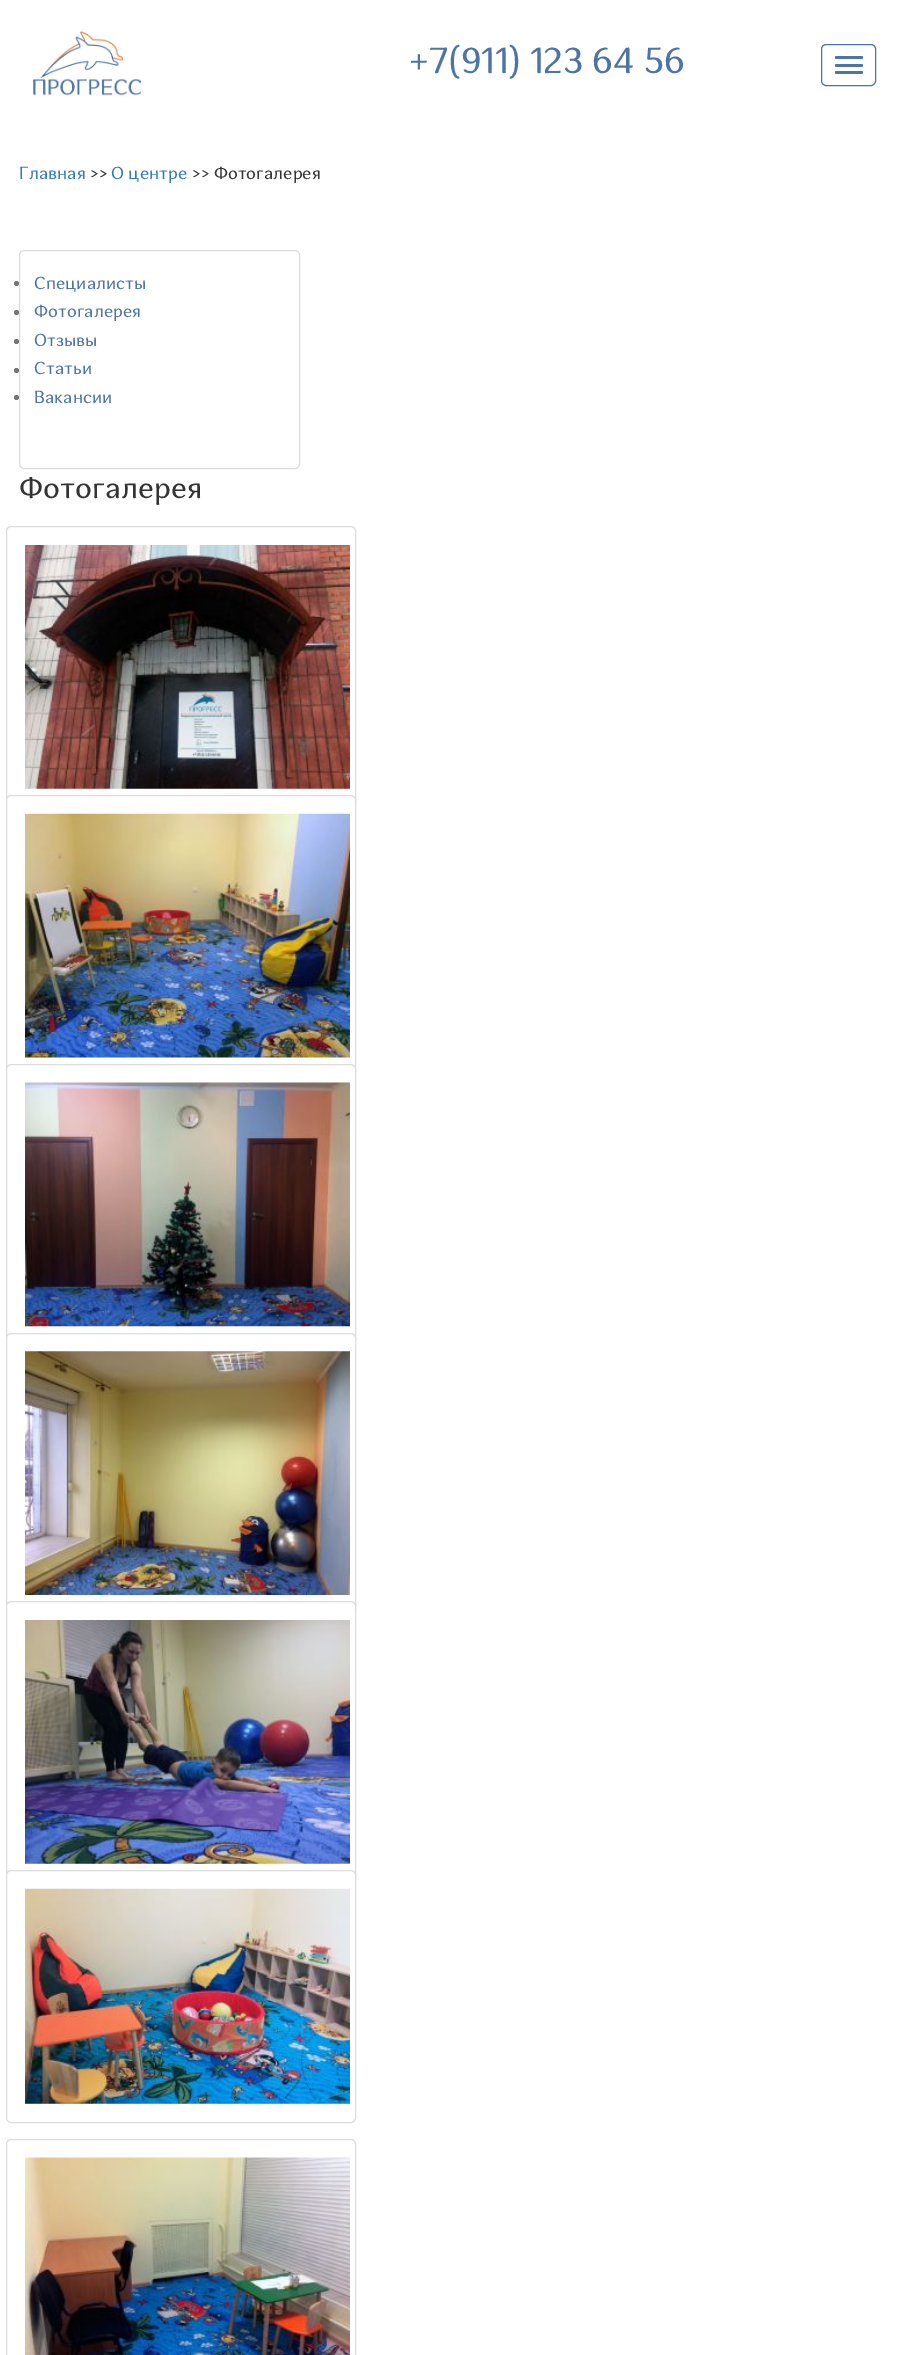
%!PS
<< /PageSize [913 2355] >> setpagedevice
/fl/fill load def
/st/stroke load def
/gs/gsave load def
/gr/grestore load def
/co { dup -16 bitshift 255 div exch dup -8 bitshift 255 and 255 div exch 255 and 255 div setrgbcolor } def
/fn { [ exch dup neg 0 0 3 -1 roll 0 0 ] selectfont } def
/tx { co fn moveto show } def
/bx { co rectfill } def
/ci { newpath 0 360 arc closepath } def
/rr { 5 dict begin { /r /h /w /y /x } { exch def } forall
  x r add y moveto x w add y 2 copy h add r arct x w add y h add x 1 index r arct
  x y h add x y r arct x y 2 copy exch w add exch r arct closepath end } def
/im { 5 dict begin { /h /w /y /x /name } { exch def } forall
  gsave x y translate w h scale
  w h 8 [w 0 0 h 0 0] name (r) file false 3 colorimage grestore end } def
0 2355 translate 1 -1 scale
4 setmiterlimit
0 0 913 2355 16#FFFFFF bx
(media/1.raw) 32 31 112 66 im
16#4C74A5 co
821.5 44.5 54 41 4.5 rr st
835 56 28 3 1.5 rr fl
835 64 28 3 1.5 rr fl
835 71 28 3 1.5 rr fl
16#DDDDDD co
19.5 250.5 280 218 4.5 rr st
16#757575 co
16.5 283.5 2.5 ci fl
16.5 312.5 2.5 ci fl
16.5 341.5 2.5 ci fl
16.5 370.5 2.5 ci fl
16.5 397.5 2.5 ci fl
16#DDDDDD co
6.5 526.5 349 281 4.5 rr st
(media/2.raw) 25 545 325 244 im
16#FFFFFF co
6.5 795.5 349 280 4.5 rr gs fl gr
16#DDDDDD co
st
(media/3.raw) 25 813 325 245 im
16#FFFFFF co
6.5 1064.5 349 280 4.5 rr gs fl gr
16#DDDDDD co
st
(media/4.raw) 25 1082 325 245 im
16#FFFFFF co
6.5 1333.5 349 280 4.5 rr gs fl gr
16#DDDDDD co
st
(media/5.raw) 25 1351 325 244 im
16#FFFFFF co
6.5 1601.5 349 281 4.5 rr gs fl gr
16#DDDDDD co
st
(media/6.raw) 25 1620 325 244 im
16#FFFFFF co
6.5 1870.5 349 252 4.5 rr gs fl gr
16#DDDDDD co
st
(media/7.raw) 25 1888 325 216 im
6.5 2139.5 349 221 4.5 rr st
(media/8.raw) 25 2157 325 198 im
(+7\(911\) 123 64 56) 409 73 /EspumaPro-Regular 37.5 16#4C74A5 tx
(Главная) 19 179 /EspumaPro-Regular 17.5 16#337AB7 tx
(>>) 90 179 /EspumaPro-Regular 17.5 16#333333 tx
(О центре) 111 179 /EspumaPro-Regular 17.5 16#337AB7 tx
(>> Фотогалерея) 192 179 /EspumaPro-Regular 17.5 16#333333 tx
(Специалисты) 34 289 /EspumaPro-Regular 17.5 16#4C74A5 tx
(Фотогалерея) 34 317 /EspumaPro-Regular 17.5 16#4C74A5 tx
(Отзывы) 34 346 /EspumaPro-Regular 17.5 16#4C74A5 tx
(Статьи) 34 374 /EspumaPro-Regular 17.5 16#4C74A5 tx
(Вакансии) 34 403 /EspumaPro-Regular 17.5 16#4C74A5 tx
(Фотогалерея) 19 498 /EspumaPro-Regular 30 16#333333 tx
showpage
